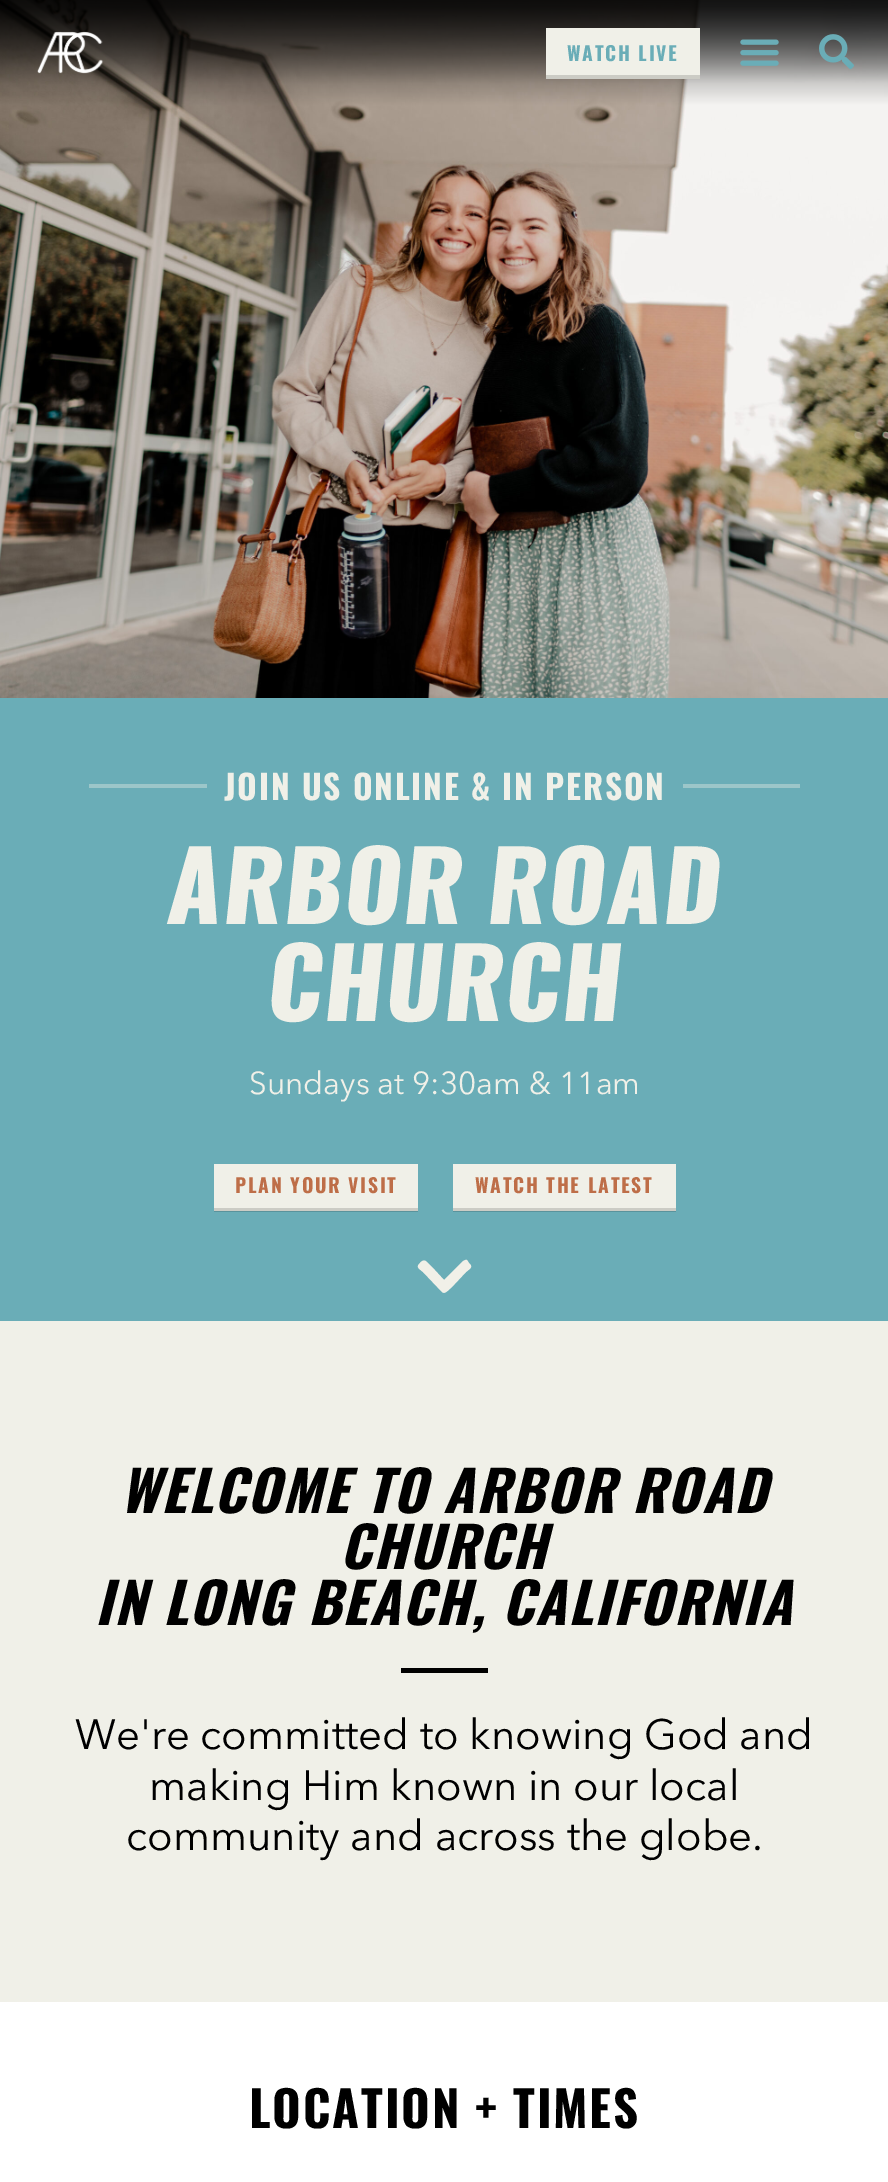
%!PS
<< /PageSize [888 2182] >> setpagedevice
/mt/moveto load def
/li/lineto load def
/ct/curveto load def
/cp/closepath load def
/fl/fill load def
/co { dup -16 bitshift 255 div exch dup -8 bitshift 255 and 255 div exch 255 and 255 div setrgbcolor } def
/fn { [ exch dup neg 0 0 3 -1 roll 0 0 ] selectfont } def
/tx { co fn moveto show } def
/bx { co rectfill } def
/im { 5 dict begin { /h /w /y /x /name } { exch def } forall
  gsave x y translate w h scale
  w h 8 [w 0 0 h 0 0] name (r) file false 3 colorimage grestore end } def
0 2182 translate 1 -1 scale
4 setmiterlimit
0 0 888 2182 16#FFFFFF bx
(media/4.raw) 0 0 888 698 im
(media/1.raw) 37 31 67 43 im
546 28 154 47 16#F0F0E8 bx
546 75 154 4 16#CCCCC5 bx
(media/2.raw) 740 39 39 27 im
(media/3.raw) 819 34 35 35 im
0 698 888 623 16#6AADB7 bx
453 1211 223 1 16#5A939C bx
214 1211 204 1 16#5A939C bx
89 784 118 4 16#9CC6C9 bx
683 784 117 4 16#9CC6C9 bx
214 1164 204 44 16#F0F0E8 bx
214 1208 204 3 16#CCCCC5 bx
453 1164 223 44 16#F0F0E8 bx
453 1208 223 3 16#CCCCC5 bx
16#F1F0E8 co
442 1292 mt 423 1272 li 418 1268 416 1267 420 1263 ct 425 1257 427 1263 432 1267 ct 444 1280 li 457 1267 li 459 1266 463 1259 467 1260 ct 469 1263 li 473 1267 471 1268 466 1272 ct 451 1288 li 449 1289 445 1295 442 1292 ct cp fl
0 1321 888 681 16#F0F0E8 bx
401 1668 87 5 16#000000 bx
/Oswald-Bold 19.5 fn
16#6AADB7 co
567 61 mt 1.75 0 (WATCH LIVE) ashow
/Oswald-Bold 33.6 fn
16#F0F0E8 co
224 800 mt 1.75 0 (JOIN US ONLINE & IN PERSON) ashow
/Oswald-BlackItalic 96.25 fn
167 924 mt 1.75 0 (ARBOR ROAD) ashow
267 1021 mt 1.75 0 (CHURCH) ashow
(Sundays at 9:30am & 11am) 249 1094 /AvenirNext-Regular 31.5 16#F0F0E8 tx
/Oswald-Bold 19.5 fn
16#BE6E48 co
235 1193 mt 1.75 0 (PLAN YOUR VISIT) ashow
475 1193 mt 1.75 0 (WATCH THE LATEST) ashow
/Oswald-BoldItalic 56 fn
16#000000 co
120 1513 mt 1.75 0 (WELCOME TO ARBOR ROAD) ashow
340 1569 mt 1.75 0 (CHURCH) ashow
95 1625 mt 1.75 0 (IN LONG BEACH, CALIFORNIA) ashow
(We're committed to knowing God and) 75 1749 /AvenirNext-Regular 42 16#000000 tx
(making Him known in our local) 149 1800 /AvenirNext-Regular 42 16#000000 tx
(community and across the globe.) 126 1850 /AvenirNext-Regular 42 16#000000 tx
/Oswald-Bold 49 fn
249 2128 mt 1.75 0 (LOCATION + TIMES) ashow
showpage
